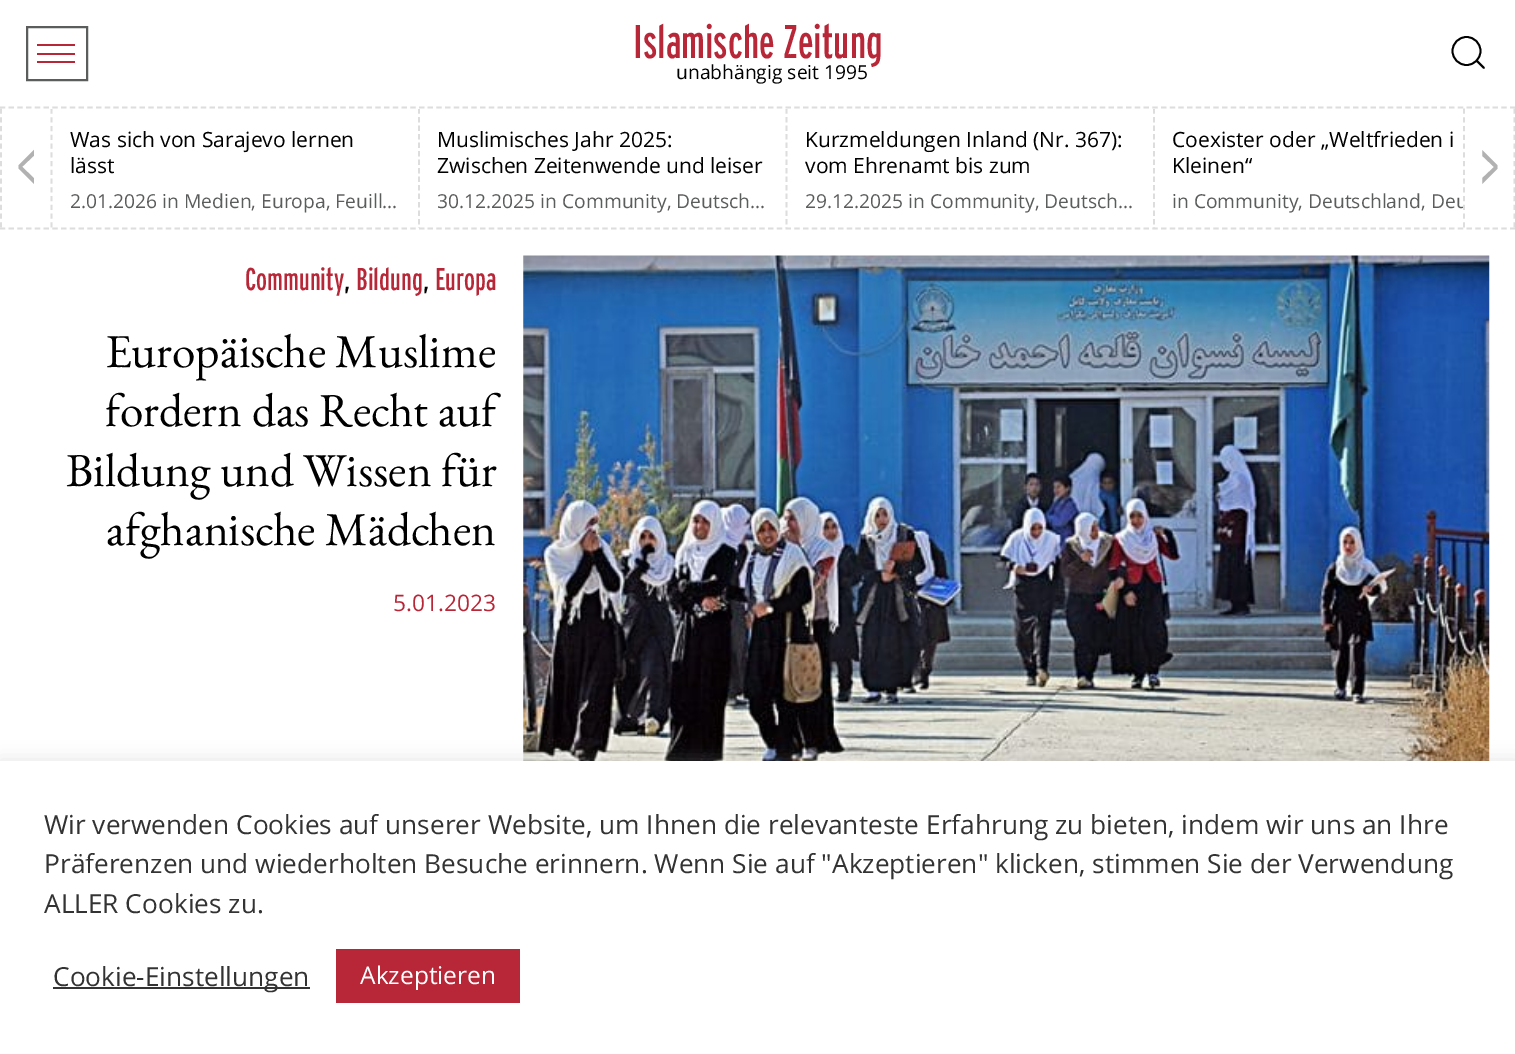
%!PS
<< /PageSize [1515 1054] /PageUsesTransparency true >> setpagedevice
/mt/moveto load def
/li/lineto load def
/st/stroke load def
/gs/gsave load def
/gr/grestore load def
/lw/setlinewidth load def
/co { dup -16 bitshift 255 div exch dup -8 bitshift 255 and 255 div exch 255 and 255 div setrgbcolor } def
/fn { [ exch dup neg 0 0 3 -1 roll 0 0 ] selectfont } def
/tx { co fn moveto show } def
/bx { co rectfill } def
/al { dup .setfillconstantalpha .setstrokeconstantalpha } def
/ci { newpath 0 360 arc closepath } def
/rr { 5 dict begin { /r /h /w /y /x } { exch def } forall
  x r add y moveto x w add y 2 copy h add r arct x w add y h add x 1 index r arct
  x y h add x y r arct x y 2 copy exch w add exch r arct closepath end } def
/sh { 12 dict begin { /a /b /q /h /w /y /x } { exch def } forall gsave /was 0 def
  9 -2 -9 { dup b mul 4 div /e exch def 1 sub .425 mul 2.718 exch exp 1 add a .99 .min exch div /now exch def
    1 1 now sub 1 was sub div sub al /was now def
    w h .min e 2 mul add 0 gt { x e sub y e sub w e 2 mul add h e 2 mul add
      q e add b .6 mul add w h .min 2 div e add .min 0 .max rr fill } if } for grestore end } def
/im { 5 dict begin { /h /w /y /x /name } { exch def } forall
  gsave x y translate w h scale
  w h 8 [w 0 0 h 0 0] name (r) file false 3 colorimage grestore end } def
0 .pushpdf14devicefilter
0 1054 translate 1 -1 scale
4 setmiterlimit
0 0 1515 1054 16#FFFFFF bx
16#5B5D5C co
2 lw
27 27 60 53 rectstroke
37 61 38 2 16#B82738 bx
37 44 38 2 16#B82738 bx
37 53 38 2 16#B82738 bx
16#000000 co
1.8 lw
1466.5 51 14 ci st
1 setlinecap
1 setlinejoin
1484 68 mt 1476.5 60.5 li st
16#DDDDDD co
0 setlinecap
0 setlinejoin
[5.25 3.48] 0 setdash
0 107.5 mt 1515.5 107.5 li st
0 228.5 mt 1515.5 228.5 li st
gs
0 109 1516 119 rectclip
[5.25 3.5] 0 setdash
51.5 108.5 mt 51.5 227.5 li st
gr
[5.25 3.5] 0 setdash
1 108.5 mt 1 227.5 li st
gs
53 109 1410 119 rectclip
[5.25 3.26] 0 setdash
419 108.5 mt 419 233 li st
786.5 108.5 mt 786.5 233 li st
1154 108.5 mt 1154 233 li st
gr
1514.5 108.5 mt 1514.5 227.5 li st
1464 108.5 mt 1464 227.5 li st
(media/1.raw) 523 255 967 506 im
16#ACABAB co
0 760 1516 294 0 9 .3 sh
0 761 1515 293 16#FFFFFF bx
53 987 257 2 16#333333 bx
336 949 184 54 16#B82738 bx
(Islamische Zeitung) 633 58 /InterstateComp-Regular 47.25 16#B82738 tx
(unabhängig seit 1995) 676 79 /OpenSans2-Regular 19.25 16#000000 tx
(<) 16 191 /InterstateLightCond-Light 70 16#B1B1B1 tx
(Was sich von Sarajevo lernen) 70 147 /OpenSans2-Regular 21 16#000000 tx
(lässt) 70 173 /OpenSans2-Regular 21 16#000000 tx
(2.01.2026 in Medien, Europa, Feuill…) 70 208 /OpenSans2-Regular 19.25 16#5B5D5C tx
(Muslimisches Jahr 2025:) 437 147 /OpenSans2-Regular 21 16#000000 tx
(Zwischen Zeitenwende und leiser) 437 173 /OpenSans2-Regular 21 16#000000 tx
(30.12.2025 in Community, Deutsch…) 437 208 /OpenSans2-Regular 19.25 16#5B5D5C tx
(Kurzmeldungen Inland \(Nr. 367\):) 805 147 /OpenSans2-Regular 21 16#000000 tx
(vom Ehrenamt bis zum) 805 173 /OpenSans2-Regular 21 16#000000 tx
(29.12.2025 in Community, Deutsch…) 805 208 /OpenSans2-Regular 19.25 16#5B5D5C tx
(Coexister oder „Weltfrieden i) 1172 147 /OpenSans2-Regular 21 16#000000 tx
(Kleinen“) 1172 173 /OpenSans2-Regular 21 16#000000 tx
(in Community, Deutschland,) 1172 208 /OpenSans2-Regular 19.25 16#5B5D5C tx
gs
1173 187 290 28 rectclip
(Deu) 1431 208 /OpenSans2-Regular 19.25 16#5B5D5C tx
gr
(>) 1479 191 /InterstateLightCond-Light 70 16#B1B1B1 tx
(Community) 245 290 /InterstateComp-Regular 31.5 16#B82738 tx
(,) 344 290 /InterstateComp-Regular 31.5 16#000000 tx
(Bildung) 356 290 /InterstateComp-Regular 31.5 16#B82738 tx
(,) 423 290 /InterstateComp-Regular 31.5 16#000000 tx
(Europa) 435 290 /InterstateComp-Regular 31.5 16#B82738 tx
(Europäische Muslime) 106 367 /EBGaramond-Regular 47.25 16#000000 tx
(fordern das Recht auf) 105 426 /EBGaramond-Regular 47.25 16#000000 tx
(Bildung und Wissen für) 66 486 /EBGaramond-Regular 47.25 16#000000 tx
(afghanische Mädchen) 106 545 /EBGaramond-Regular 47.25 16#000000 tx
(5.01.2023) 393 611 /OpenSans-Regular 22.75 16#B82738 tx
(Wir verwenden Cookies auf unserer Website, um Ihnen die relevanteste Erfahrung zu bieten, indem wir uns an Ihre) 44 834 /OpenSans2-Regular 26.25 16#333333 tx
(Präferenzen und wiederholten Besuche erinnern. Wenn Sie auf "Akzeptieren" klicken, stimmen Sie der Verwendung) 44 873 /OpenSans2-Regular 26.25 16#333333 tx
(ALLER Cookies zu.) 44 913 /OpenSans2-Regular 26.25 16#333333 tx
(Cookie-Einstellungen) 53 986 /OpenSans2-Regular 26.25 16#333333 tx
(Akzeptieren) 360 984 /OpenSans2-Regular 24.5 16#FFFFFF tx
.poppdf14devicefilter showpage
